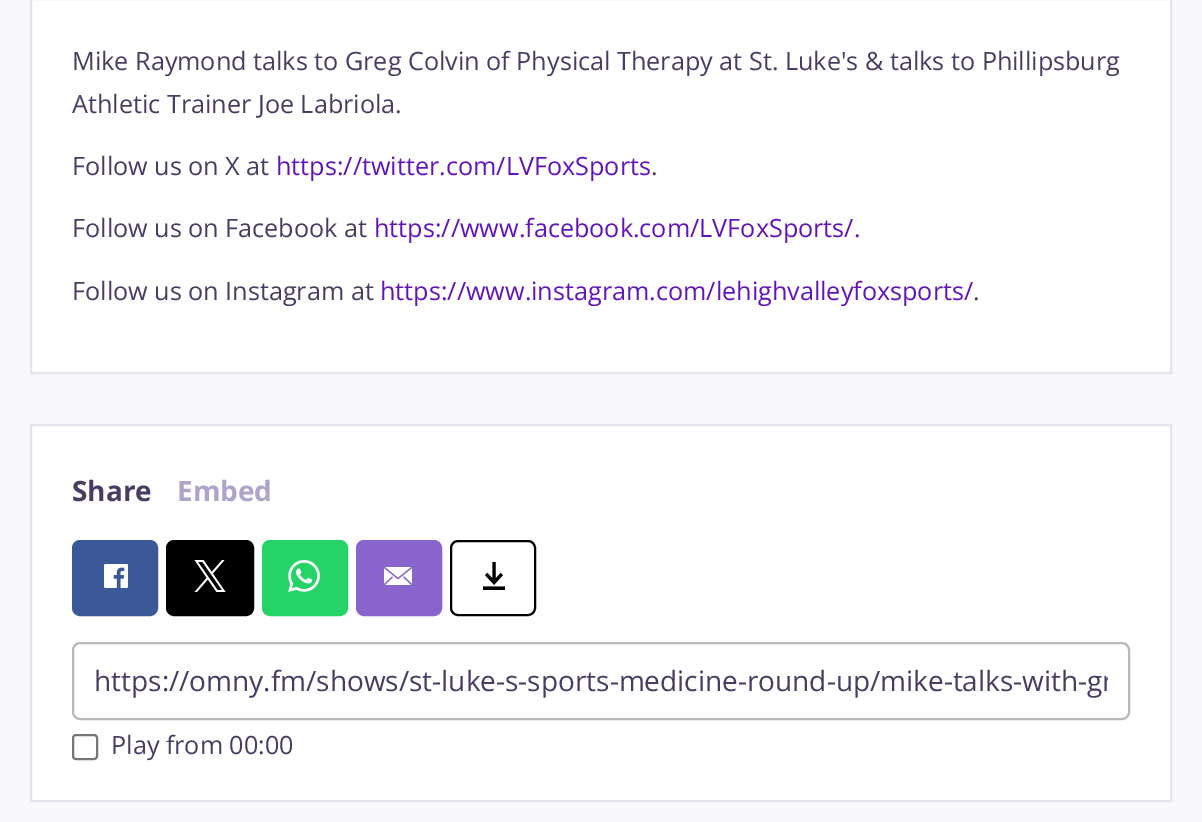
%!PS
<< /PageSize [1202 822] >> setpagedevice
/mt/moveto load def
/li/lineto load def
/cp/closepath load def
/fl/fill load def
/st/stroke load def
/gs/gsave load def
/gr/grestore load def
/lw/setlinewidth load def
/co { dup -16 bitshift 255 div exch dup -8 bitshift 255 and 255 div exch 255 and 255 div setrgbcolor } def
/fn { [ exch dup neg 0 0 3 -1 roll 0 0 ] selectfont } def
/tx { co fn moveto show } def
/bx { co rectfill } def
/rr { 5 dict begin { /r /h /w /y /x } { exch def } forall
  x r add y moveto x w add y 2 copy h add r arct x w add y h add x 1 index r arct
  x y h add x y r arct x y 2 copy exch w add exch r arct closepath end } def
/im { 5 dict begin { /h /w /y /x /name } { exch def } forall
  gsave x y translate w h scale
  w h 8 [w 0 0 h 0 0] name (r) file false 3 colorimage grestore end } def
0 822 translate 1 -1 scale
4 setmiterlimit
0 0 1202 822 16#F9F8FB bx
16#FFFFFF co
31 -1 mt 1171 -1 li 1171 373 li 31 373 li cp gs fl gr
16#E6E2EE co
2 lw
st
16#FFFFFF co
31 425 mt 1171 425 li 1171 801 li 31 801 li cp gs fl gr
16#E6E2EE co
st
16#3B5998 co
73 541 84 74 7 rr gs fl gr
st
(media/1.raw) 104 564 24 24 im
16#000000 co
167 541 86 74 7 rr gs fl gr
st
(media/2.raw) 194 560 32 32 im
16#25D366 co
263 541 84 74 7 rr gs fl gr
st
(media/3.raw) 288 560 32 32 im
16#8964CC co
357 541 84 74 7 rr gs fl gr
st
(media/4.raw) 384 567 28 18 im
16#000000 co
451 541 84 74 7 rr st
(media/5.raw) 483 562 22 28 im
16#B9B9B9 co
73 643 1056 76 7 rr st
16#767676 co
73 735 24 24 3 rr st
(Mike Raymond talks to Greg Colvin of Physical Therapy at St. Luke's & talks to Phillipsburg) 72 70 /OpenSans-Regular 25.2 16#483C63 tx
(Athletic Trainer Joe Labriola.) 72 113 /OpenSans-Regular 25.2 16#483C63 tx
(Follow us on X at) 72 175 /OpenSans-Regular 25.2 16#483C63 tx
(https://twitter.com/LVFoxSports) 276 175 /OpenSans-Regular 25.2 16#6313BC tx
(.) 651 175 /OpenSans-Regular 25.2 16#483C63 tx
(Follow us on Facebook at) 72 237 /OpenSans-Regular 25.2 16#483C63 tx
(https://www.facebook.com/LVFoxSports/.) 374 237 /OpenSans-Regular 25.2 16#6313BC tx
(Follow us on Instagram at) 72 300 /OpenSans-Regular 25.2 16#483C63 tx
(https://www.instagram.com/lehighvalleyfoxsports/) 380 300 /OpenSans-Regular 25.2 16#6313BC tx
(.) 973 300 /OpenSans-Regular 25.2 16#483C63 tx
(Share) 72 501 /OpenSans-Bold 28 16#483C63 tx
(Embed) 177 501 /OpenSans-Bold 28 16#AEA3C8 tx
gs
94 658 1014 46 rectclip
(https://omny.fm/shows/st-luke-s-sports-medicine-round-up/mike-talks-with-gr) 94 691 /OpenSans-Regular 28 16#483C63 tx
gr
(Play from 00:00) 111 754 /OpenSans-Regular 25.2 16#483C63 tx
showpage
